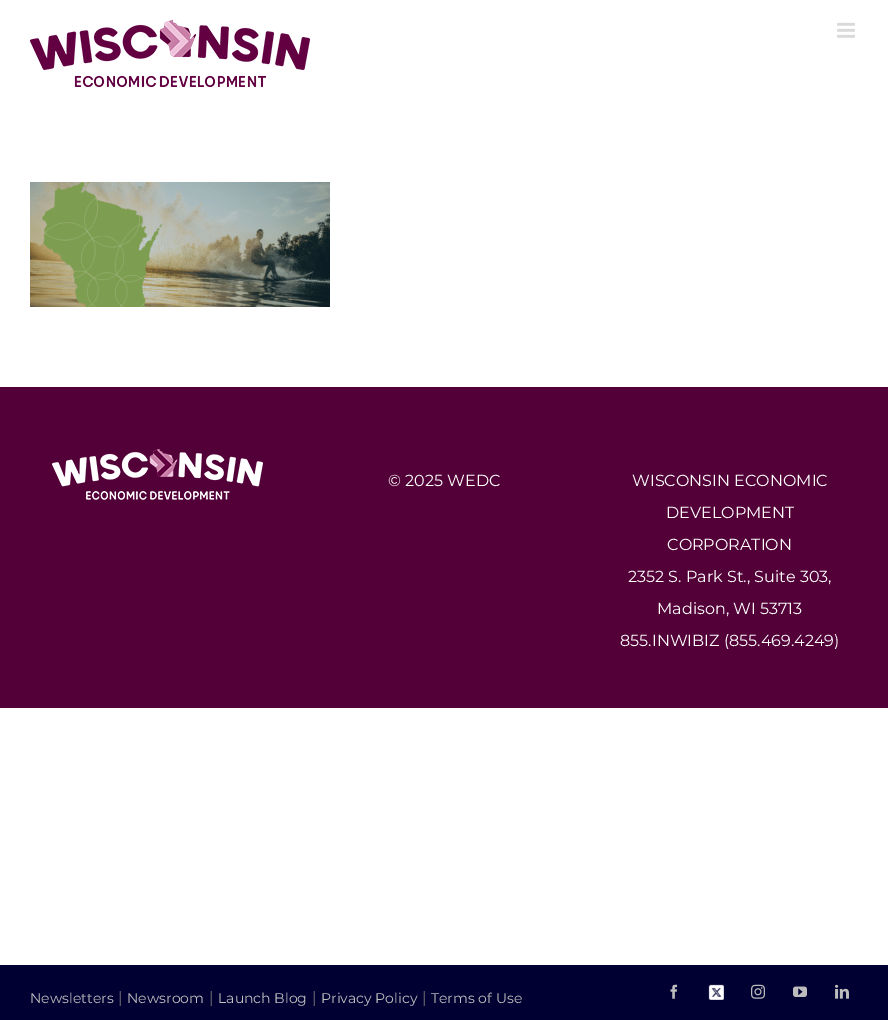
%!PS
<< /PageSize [888 1020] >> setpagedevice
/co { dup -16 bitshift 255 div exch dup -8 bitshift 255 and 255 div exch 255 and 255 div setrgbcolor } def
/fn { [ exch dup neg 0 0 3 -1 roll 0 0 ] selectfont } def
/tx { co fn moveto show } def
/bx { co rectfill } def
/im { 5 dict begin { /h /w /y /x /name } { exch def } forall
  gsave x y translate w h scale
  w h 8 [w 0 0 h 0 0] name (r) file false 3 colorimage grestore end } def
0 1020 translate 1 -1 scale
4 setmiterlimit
0 0 888 1020 16#FFFFFF bx
(media/1.raw) 30 20 280 67 im
(media/2.raw) 837 22 18 16 im
(media/3.raw) 30 182 300 125 im
0 387 888 321 16#520037 bx
(media/4.raw) 52 449 211 51 im
0 965 888 55 16#000033 bx
(media/5.raw) 670 984 8 15 im
(media/6.raw) 708 984 16 16 im
(media/7.raw) 751 984 14 15 im
(media/8.raw) 793 986 14 11 im
(media/9.raw) 835 984 14 15 im
(© 2025 WEDC) 388 486 /Montserrat-Regular 16 16#FFFFFF tx
(WISCONSIN ECONOMIC) 632 486 /Montserrat-Regular 16 16#FFFFFF tx
(DEVELOPMENT) 666 518 /Montserrat-Regular 16 16#FFFFFF tx
(CORPORATION) 667 550 /Montserrat-Regular 16 16#FFFFFF tx
(2352 S. Park St., Suite 303,) 628 582 /Montserrat-Regular 16 16#FFFFFF tx
(Madison, WI 53713) 657 614 /Montserrat-Regular 16 16#FFFFFF tx
(855.INWIBIZ \(855.469.4249\)) 620 646 /Montserrat-Regular 16 16#FFFFFF tx
(Newsletters) 30 1003 /Montserrat-Regular 14 16#BFBFBF tx
(|) 118 1003 /Montserrat-Regular 16 16#747474 tx
(Newsroom) 127 1003 /Montserrat-Regular 14 16#BFBFBF tx
(|) 209 1003 /Montserrat-Regular 16 16#747474 tx
(Launch Blog) 218 1003 /Montserrat-Regular 14 16#BFBFBF tx
(|) 312 1003 /Montserrat-Regular 16 16#747474 tx
(Privacy Policy) 321 1003 /Montserrat-Regular 14 16#BFBFBF tx
(|) 422 1003 /Montserrat-Regular 16 16#747474 tx
(Terms of Use) 431 1003 /Montserrat-Regular 14 16#BFBFBF tx
showpage
